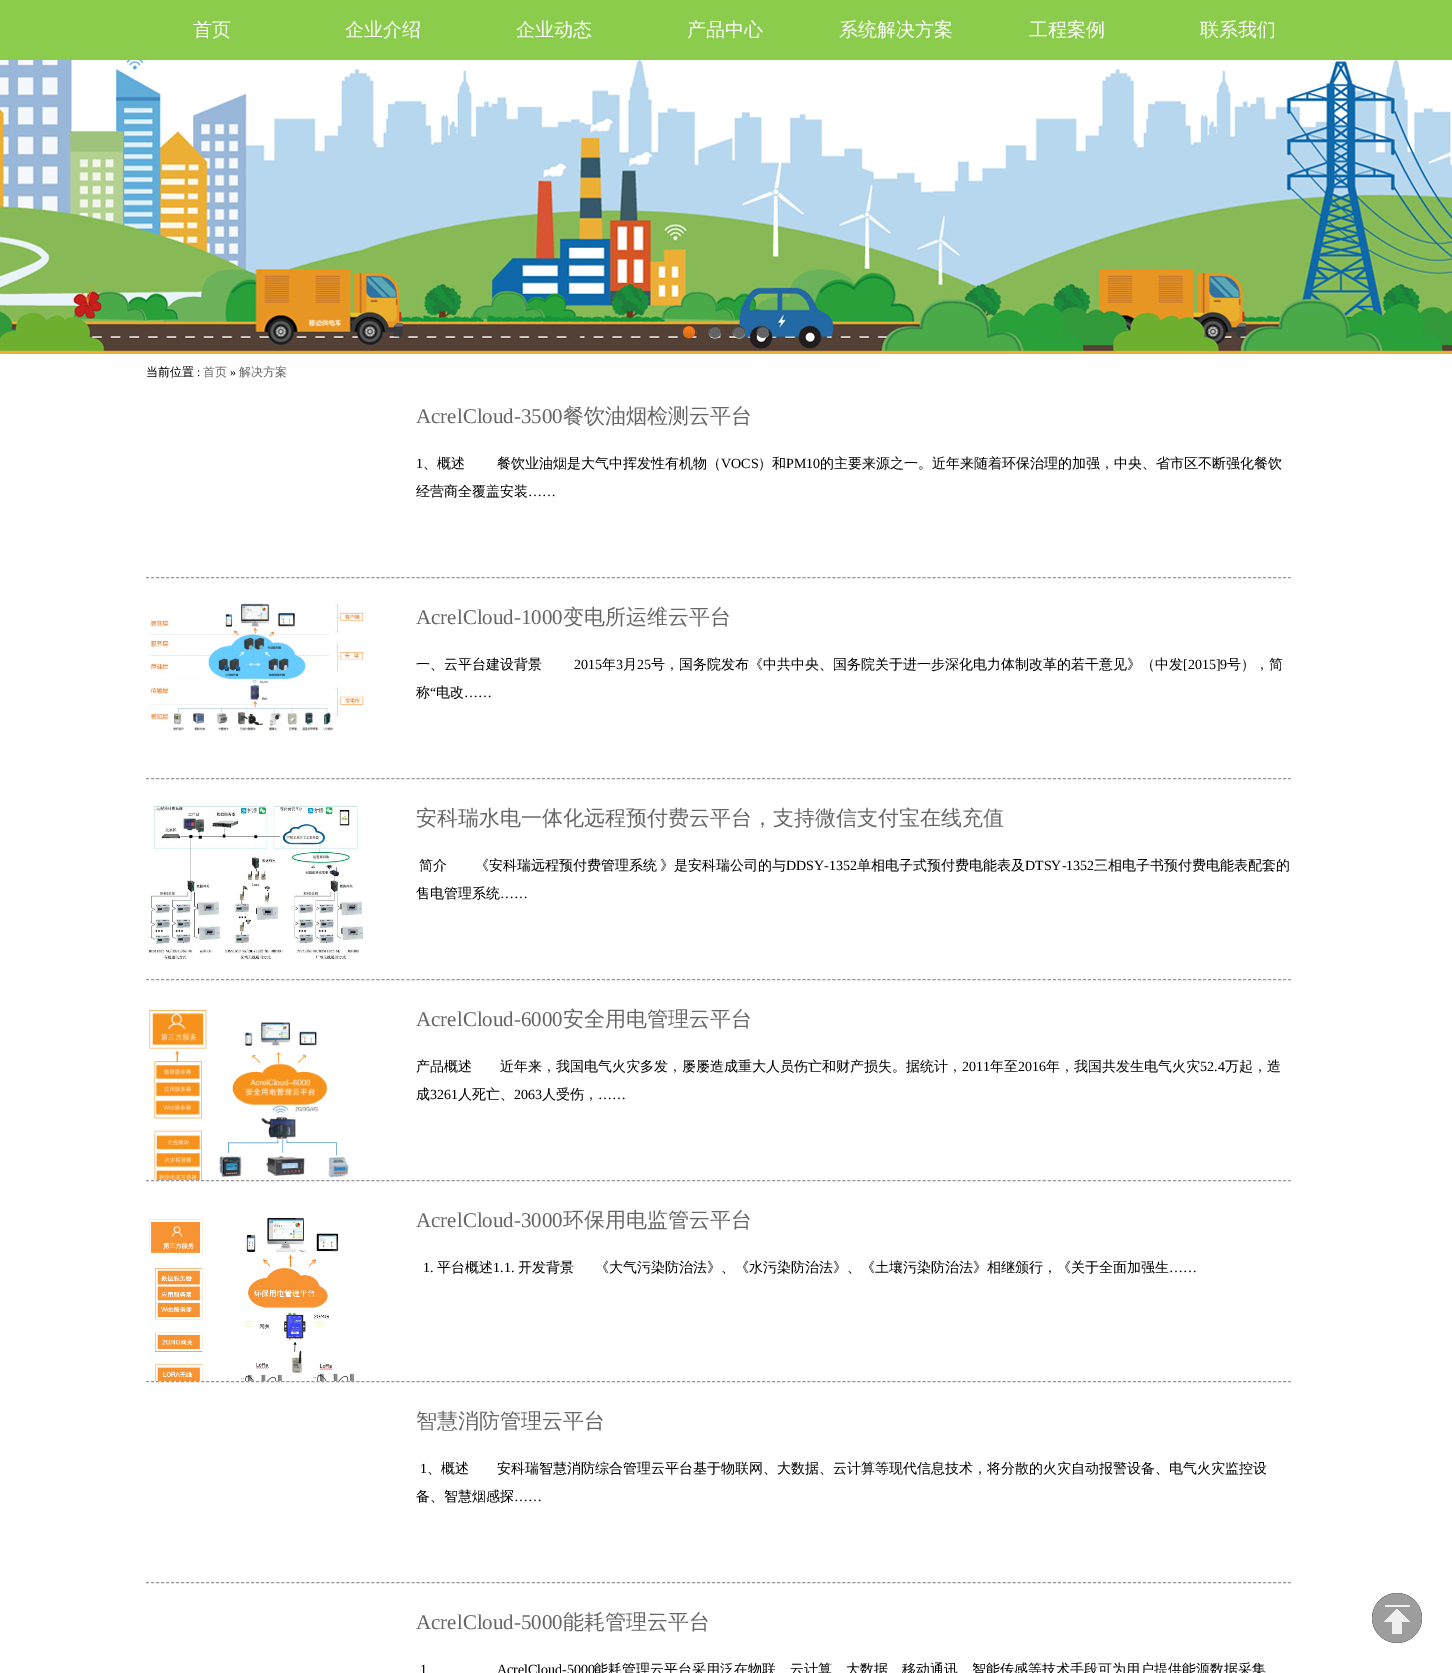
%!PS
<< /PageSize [1452 1673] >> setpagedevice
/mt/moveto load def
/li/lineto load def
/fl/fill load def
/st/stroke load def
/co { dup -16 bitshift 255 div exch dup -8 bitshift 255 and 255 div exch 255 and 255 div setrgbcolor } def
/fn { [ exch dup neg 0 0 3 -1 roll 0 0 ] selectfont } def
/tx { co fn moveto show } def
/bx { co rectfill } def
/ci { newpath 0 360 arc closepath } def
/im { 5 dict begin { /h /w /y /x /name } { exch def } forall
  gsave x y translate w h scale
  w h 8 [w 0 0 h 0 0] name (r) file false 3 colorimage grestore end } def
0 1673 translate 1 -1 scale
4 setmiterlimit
0 0 1452 1673 16#FFFFFF bx
0 0 1452 60 16#8BCC4C bx
(media/1.raw) 0 60 1452 294 im
(media/2.raw) 683 326 14 13 im
(media/3.raw) 708 326 13 13 im
(media/4.raw) 732 326 13 13 im
(media/5.raw) 756 326 13 13 im
16#999999 co
[3 2.01] 0 setdash
146 577.5 mt 1291 577.5 li st
146 778.5 mt 1291 778.5 li st
(media/6.raw) 149 603 215 128 im
146 979.5 mt 1291 979.5 li st
(media/7.raw) 148 804 216 156 im
146 1180.5 mt 1291 1180.5 li st
(media/8.raw) 149 1010 200 170 im
146 1381.5 mt 1291 1381.5 li st
(media/9.raw) 149 1218 206 163 im
146 1582.5 mt 1291 1582.5 li st
16#000000 co
1397 1618 25 ci fl
(media/10.raw) 1372 1593 50 50 im
(首页) 193 36 /WenQuanYiZenHei-Medium 19 16#FFFFFF tx
(企业介绍) 345 36 /WenQuanYiZenHei-Medium 19 16#FFFFFF tx
(企业动态) 516 36 /WenQuanYiZenHei-Medium 19 16#FFFFFF tx
(产品中心) 687 36 /WenQuanYiZenHei-Medium 19 16#FFFFFF tx
(系统解决方案) 839 36 /WenQuanYiZenHei-Medium 19 16#FFFFFF tx
(工程案例) 1029 36 /WenQuanYiZenHei-Medium 19 16#FFFFFF tx
(联系我们) 1200 36 /WenQuanYiZenHei-Medium 19 16#FFFFFF tx
(当前位置) 146 376 /WenQuanYiZenHei-Medium 12 16#000000 tx
(:) 197 376 /LiberationSerif-Regular 12 16#000000 tx
(首页) 203 376 /WenQuanYiZenHei-Medium 12 16#666666 tx
(») 230 376 /LiberationSerif-Regular 12 16#000000 tx
(解决方案) 239 376 /WenQuanYiZenHei-Medium 12 16#666666 tx
(AcrelCloud-3500) 416 423 /LiberationSerif-Regular 21 16#666666 tx
(餐饮油烟检测云平台) 563 423 /WenQuanYiZenHei-Medium 21 16#666666 tx
(1) 416 468 /LiberationSerif-Regular 14 16#000000 tx
(、概述) 423 468 /WenQuanYiZenHei-Medium 14 16#000000 tx
(餐饮业油烟是大气中挥发性有机物（) 497 468 /WenQuanYiZenHei-Medium 14 16#000000 tx
(VOCS) 721 468 /LiberationSerif-Regular 14 16#000000 tx
(）和) 758 468 /WenQuanYiZenHei-Medium 14 16#000000 tx
(PM10) 786 468 /LiberationSerif-Regular 14 16#000000 tx
(的主要来源之一。近年来随着环保治理的加强，中央、省市区不断强化餐饮) 820 468 /WenQuanYiZenHei-Medium 14 16#000000 tx
(经营商全覆盖安装) 416 496 /WenQuanYiZenHei-Medium 14 16#000000 tx
(……) 528 496 /LiberationSerif-Regular 14 16#000000 tx
(AcrelCloud-1000) 416 624 /LiberationSerif-Regular 21 16#666666 tx
(变电所运维云平台) 563 624 /WenQuanYiZenHei-Medium 21 16#666666 tx
(一、云平台建设背景) 416 669 /WenQuanYiZenHei-Medium 14 16#000000 tx
(2015) 574 669 /LiberationSerif-Regular 14 16#000000 tx
(年) 602 669 /WenQuanYiZenHei-Medium 14 16#000000 tx
(3) 616 669 /LiberationSerif-Regular 14 16#000000 tx
(月) 623 669 /WenQuanYiZenHei-Medium 14 16#000000 tx
(25) 637 669 /LiberationSerif-Regular 14 16#000000 tx
(号，国务院发布《中共中央、国务院关于进一步深化电力体制改革的若干意见》（中发) 651 669 /WenQuanYiZenHei-Medium 14 16#000000 tx
([2015]9) 1183 669 /LiberationSerif-Regular 14 16#000000 tx
(号），简) 1227 669 /WenQuanYiZenHei-Medium 14 16#000000 tx
(称) 416 697 /WenQuanYiZenHei-Medium 14 16#000000 tx
(“) 430 697 /LiberationSerif-Regular 14 16#000000 tx
(电改) 436 697 /WenQuanYiZenHei-Medium 14 16#000000 tx
(……) 464 697 /LiberationSerif-Regular 14 16#000000 tx
(安科瑞水电一体化远程预付费云平台，支持微信支付宝在线充值) 416 825 /WenQuanYiZenHei-Medium 21 16#666666 tx
(简介) 419 870 /WenQuanYiZenHei-Medium 14 16#000000 tx
475 870 mt -1 0 32 (《安科瑞远程预付费管理系统 》是安科瑞公司的与) widthshow
(DDSY-1352) 786 870 /LiberationSerif-Regular 14 16#000000 tx
(单相电子式预付费电能表及) 857 870 /WenQuanYiZenHei-Medium 14 16#000000 tx
(DTSY-1352) 1025 870 /LiberationSerif-Regular 14 16#000000 tx
(三相电子书预付费电能表配套的) 1094 870 /WenQuanYiZenHei-Medium 14 16#000000 tx
(售电管理系统) 416 898 /WenQuanYiZenHei-Medium 14 16#000000 tx
(……) 500 898 /LiberationSerif-Regular 14 16#000000 tx
(AcrelCloud-6000) 416 1026 /LiberationSerif-Regular 21 16#666666 tx
(安全用电管理云平台) 563 1026 /WenQuanYiZenHei-Medium 21 16#666666 tx
(产品概述　　近年来，我国电气火灾多发，屡屡造成重大人员伤亡和财产损失。据统计，) 416 1071 /WenQuanYiZenHei-Medium 14 16#000000 tx
(2011) 962 1071 /LiberationSerif-Regular 14 16#000000 tx
(年至) 990 1071 /WenQuanYiZenHei-Medium 14 16#000000 tx
(2016) 1018 1071 /LiberationSerif-Regular 14 16#000000 tx
(年，我国共发生电气火灾) 1046 1071 /WenQuanYiZenHei-Medium 14 16#000000 tx
(52.4) 1200 1071 /LiberationSerif-Regular 14 16#000000 tx
(万起，造) 1225 1071 /WenQuanYiZenHei-Medium 14 16#000000 tx
(成) 416 1099 /WenQuanYiZenHei-Medium 14 16#000000 tx
(3261) 430 1099 /LiberationSerif-Regular 14 16#000000 tx
(人死亡、) 458 1099 /WenQuanYiZenHei-Medium 14 16#000000 tx
(2063) 514 1099 /LiberationSerif-Regular 14 16#000000 tx
(人受伤，) 542 1099 /WenQuanYiZenHei-Medium 14 16#000000 tx
(……) 598 1099 /LiberationSerif-Regular 14 16#000000 tx
(AcrelCloud-3000) 416 1227 /LiberationSerif-Regular 21 16#666666 tx
(环保用电监管云平台) 563 1227 /WenQuanYiZenHei-Medium 21 16#666666 tx
(1.) 423 1272 /LiberationSerif-Regular 14 16#000000 tx
(平台概述) 437 1272 /WenQuanYiZenHei-Medium 14 16#000000 tx
(1.1.) 493 1272 /LiberationSerif-Regular 14 16#000000 tx
(开发背景) 518 1272 /WenQuanYiZenHei-Medium 14 16#000000 tx
(《大气污染防治法》、《水污染防治法》、《土壤污染防治法》相继颁行，《关于全面加强生) 595 1272 /WenQuanYiZenHei-Medium 14 16#000000 tx
(……) 1169 1272 /LiberationSerif-Regular 14 16#000000 tx
(智慧消防管理云平台) 416 1428 /WenQuanYiZenHei-Medium 21 16#666666 tx
(1) 420 1473 /LiberationSerif-Regular 14 16#000000 tx
(、概述) 427 1473 /WenQuanYiZenHei-Medium 14 16#000000 tx
(安科瑞智慧消防综合管理云平台基于物联网、大数据、云计算等现代信息技术，将分散的火灾自动报警设备、电气火灾监控设) 497 1473 /WenQuanYiZenHei-Medium 14 16#000000 tx
(备、智慧烟感探) 416 1501 /WenQuanYiZenHei-Medium 14 16#000000 tx
(……) 514 1501 /LiberationSerif-Regular 14 16#000000 tx
(AcrelCloud-5000) 416 1629 /LiberationSerif-Regular 21 16#666666 tx
(能耗管理云平台) 563 1629 /WenQuanYiZenHei-Medium 21 16#666666 tx
(1) 420 1674 /LiberationSerif-Regular 14 16#000000 tx
(AcrelCloud-5000) 497 1674 /LiberationSerif-Regular 14 16#000000 tx
(能耗管理云平台采用泛在物联、云计算、大数据、移动通讯、智能传感等技术手段可为用户提供能源数据采集) 594 1674 /WenQuanYiZenHei-Medium 14 16#000000 tx
showpage
